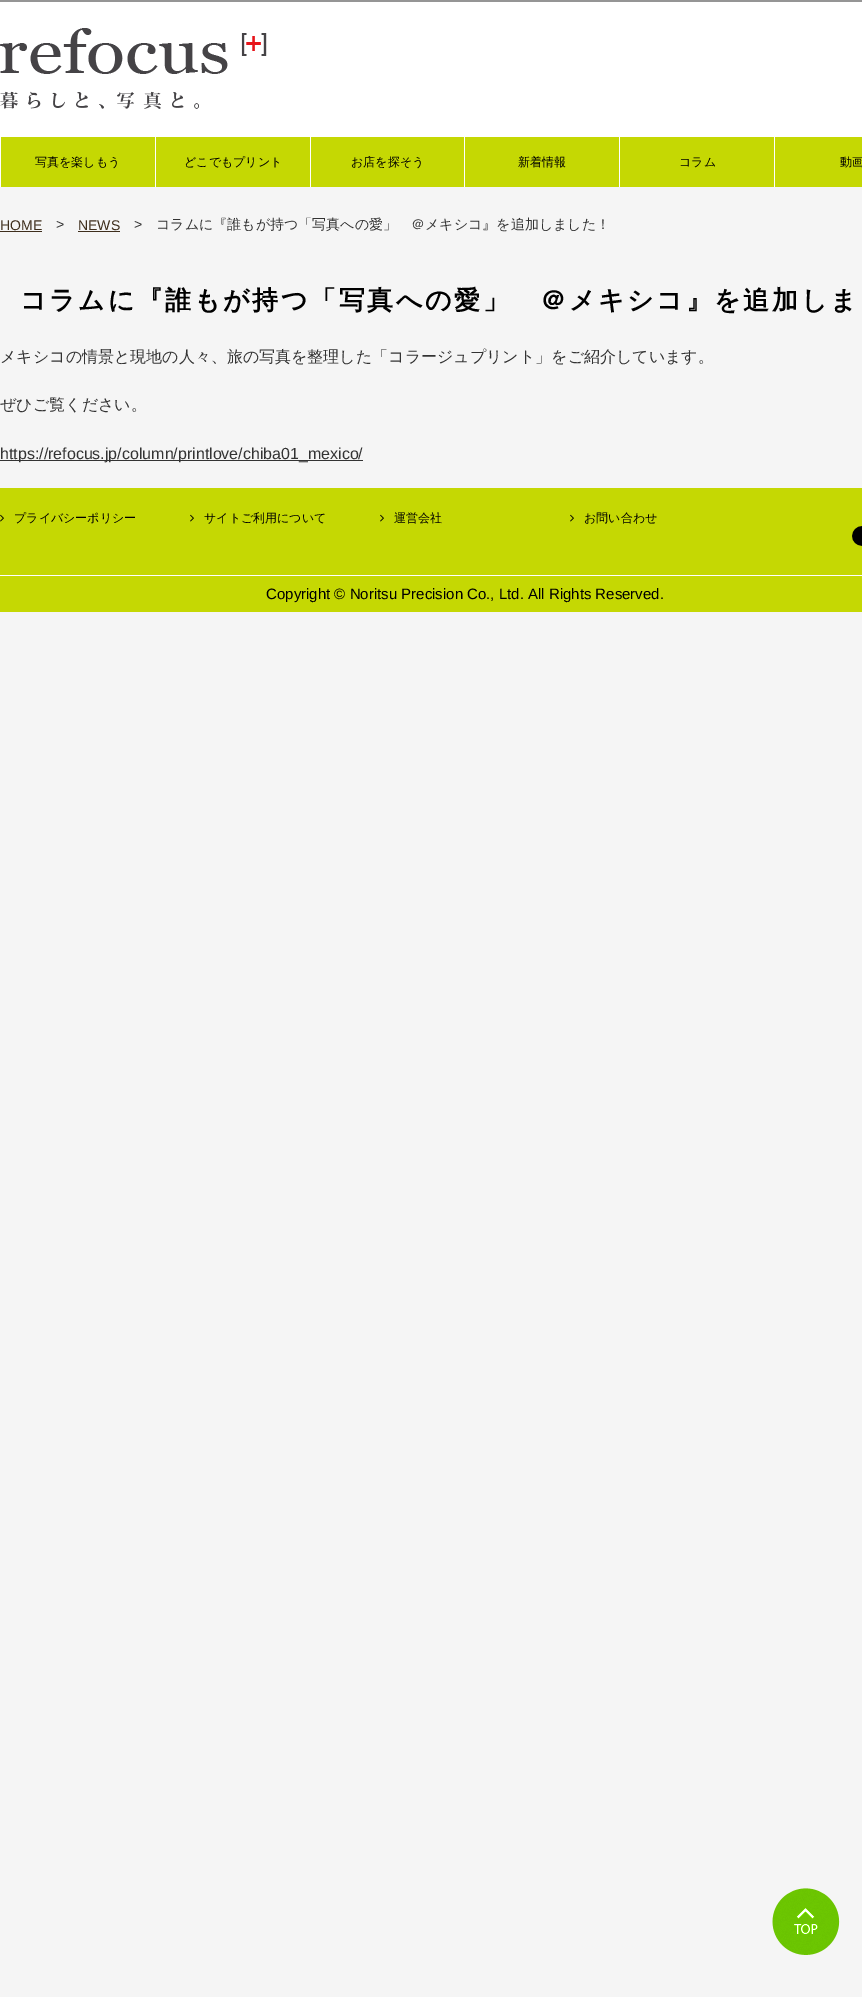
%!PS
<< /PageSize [862 1997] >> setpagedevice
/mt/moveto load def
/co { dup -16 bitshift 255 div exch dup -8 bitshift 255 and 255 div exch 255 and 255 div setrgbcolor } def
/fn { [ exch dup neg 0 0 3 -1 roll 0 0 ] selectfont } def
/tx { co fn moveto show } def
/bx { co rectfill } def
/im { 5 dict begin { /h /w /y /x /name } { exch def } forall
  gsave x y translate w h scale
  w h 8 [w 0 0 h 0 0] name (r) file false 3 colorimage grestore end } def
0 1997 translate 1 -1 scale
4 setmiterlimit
0 0 862 1997 16#F5F5F5 bx
0 2 862 135 16#FFFFFF bx
0 0 862 2 16#959595 bx
(media/1.raw) 0 28 267 81 im
1 137 861 50 16#C5D803 bx
0 137 1 50 16#FFFFFF bx
155 137 1 50 16#FFFFFF bx
310 137 1 50 16#FFFFFF bx
464 137 1 50 16#FFFFFF bx
619 137 1 50 16#FFFFFF bx
774 137 1 50 16#FFFFFF bx
0 231 42 1 16#3E2E1C bx
78 231 42 1 16#3E2E1C bx
0 460 363 1 16#333333 bx
0 488 862 124 16#C5D803 bx
(media/2.raw) 0 514 4 8 im
(media/2.raw) 190 514 4 8 im
(media/2.raw) 380 514 4 8 im
(media/2.raw) 570 514 4 8 im
(media/3.raw) 852 526 10 20 im
0 575 862 1 16#FFFFFF bx
(media/4.raw) 772 1888 68 67 im
(写真を楽しもう) 35 166 /WenQuanYiZenHei-Medium 12 16#000000 tx
(どこでもプリント) 184 166 /WenQuanYiZenHei-Medium 12 16#000000 tx
(お店を探そう) 351 166 /WenQuanYiZenHei-Medium 12 16#000000 tx
(新着情報) 518 166 /WenQuanYiZenHei-Medium 12 16#000000 tx
(コラム) 679 166 /WenQuanYiZenHei-Medium 12 16#000000 tx
(動画) 840 166 /WenQuanYiZenHei-Medium 12 16#000000 tx
(HOME) 0 230 /LiberationSans-Regular 14 16#3E2E1C tx
(>) 56 229 /LiberationSans-Regular 14 16#333333 tx
(NEWS) 78 230 /LiberationSans-Regular 14 16#3E2E1C tx
(>) 134 229 /LiberationSans-Regular 14 16#333333 tx
(コラムに『誰もが持つ「写真への愛」　＠メキシコ』を追加しました！) 156 229 /WenQuanYiZenHei-Medium 14 16#333333 tx
/WenQuanYiZenHei-Bold 26 fn
16#000000 co
20 309 mt 2.6 0 (コラムに『誰もが持つ「写真への愛」　＠メキシコ』を追加しま) ashow
(メキシコの情景と現地の人々、旅の写真を整理した「コラージュプリント」をご紹介しています。) 0 362 /WenQuanYiZenHei-Medium 16 16#333333 tx
(ぜひご覧ください。) 0 410 /WenQuanYiZenHei-Medium 16 16#333333 tx
(https://refocus.jp/column/printlove/chiba01_mexico/) 0 459 /LiberationSans-Regular 16 16#333333 tx
(プライバシーポリシー) 14 522 /WenQuanYiZenHei-Medium 12 16#000000 tx
(サイトご利用について) 204 522 /WenQuanYiZenHei-Medium 12 16#000000 tx
(運営会社) 394 522 /WenQuanYiZenHei-Medium 12 16#000000 tx
(お問い合わせ) 584 522 /WenQuanYiZenHei-Medium 12 16#000000 tx
(Copyright © Noritsu Precision Co., Ltd. All Rights Reserved.) 266 599 /LiberationSans-Regular 15 16#000000 tx
showpage
